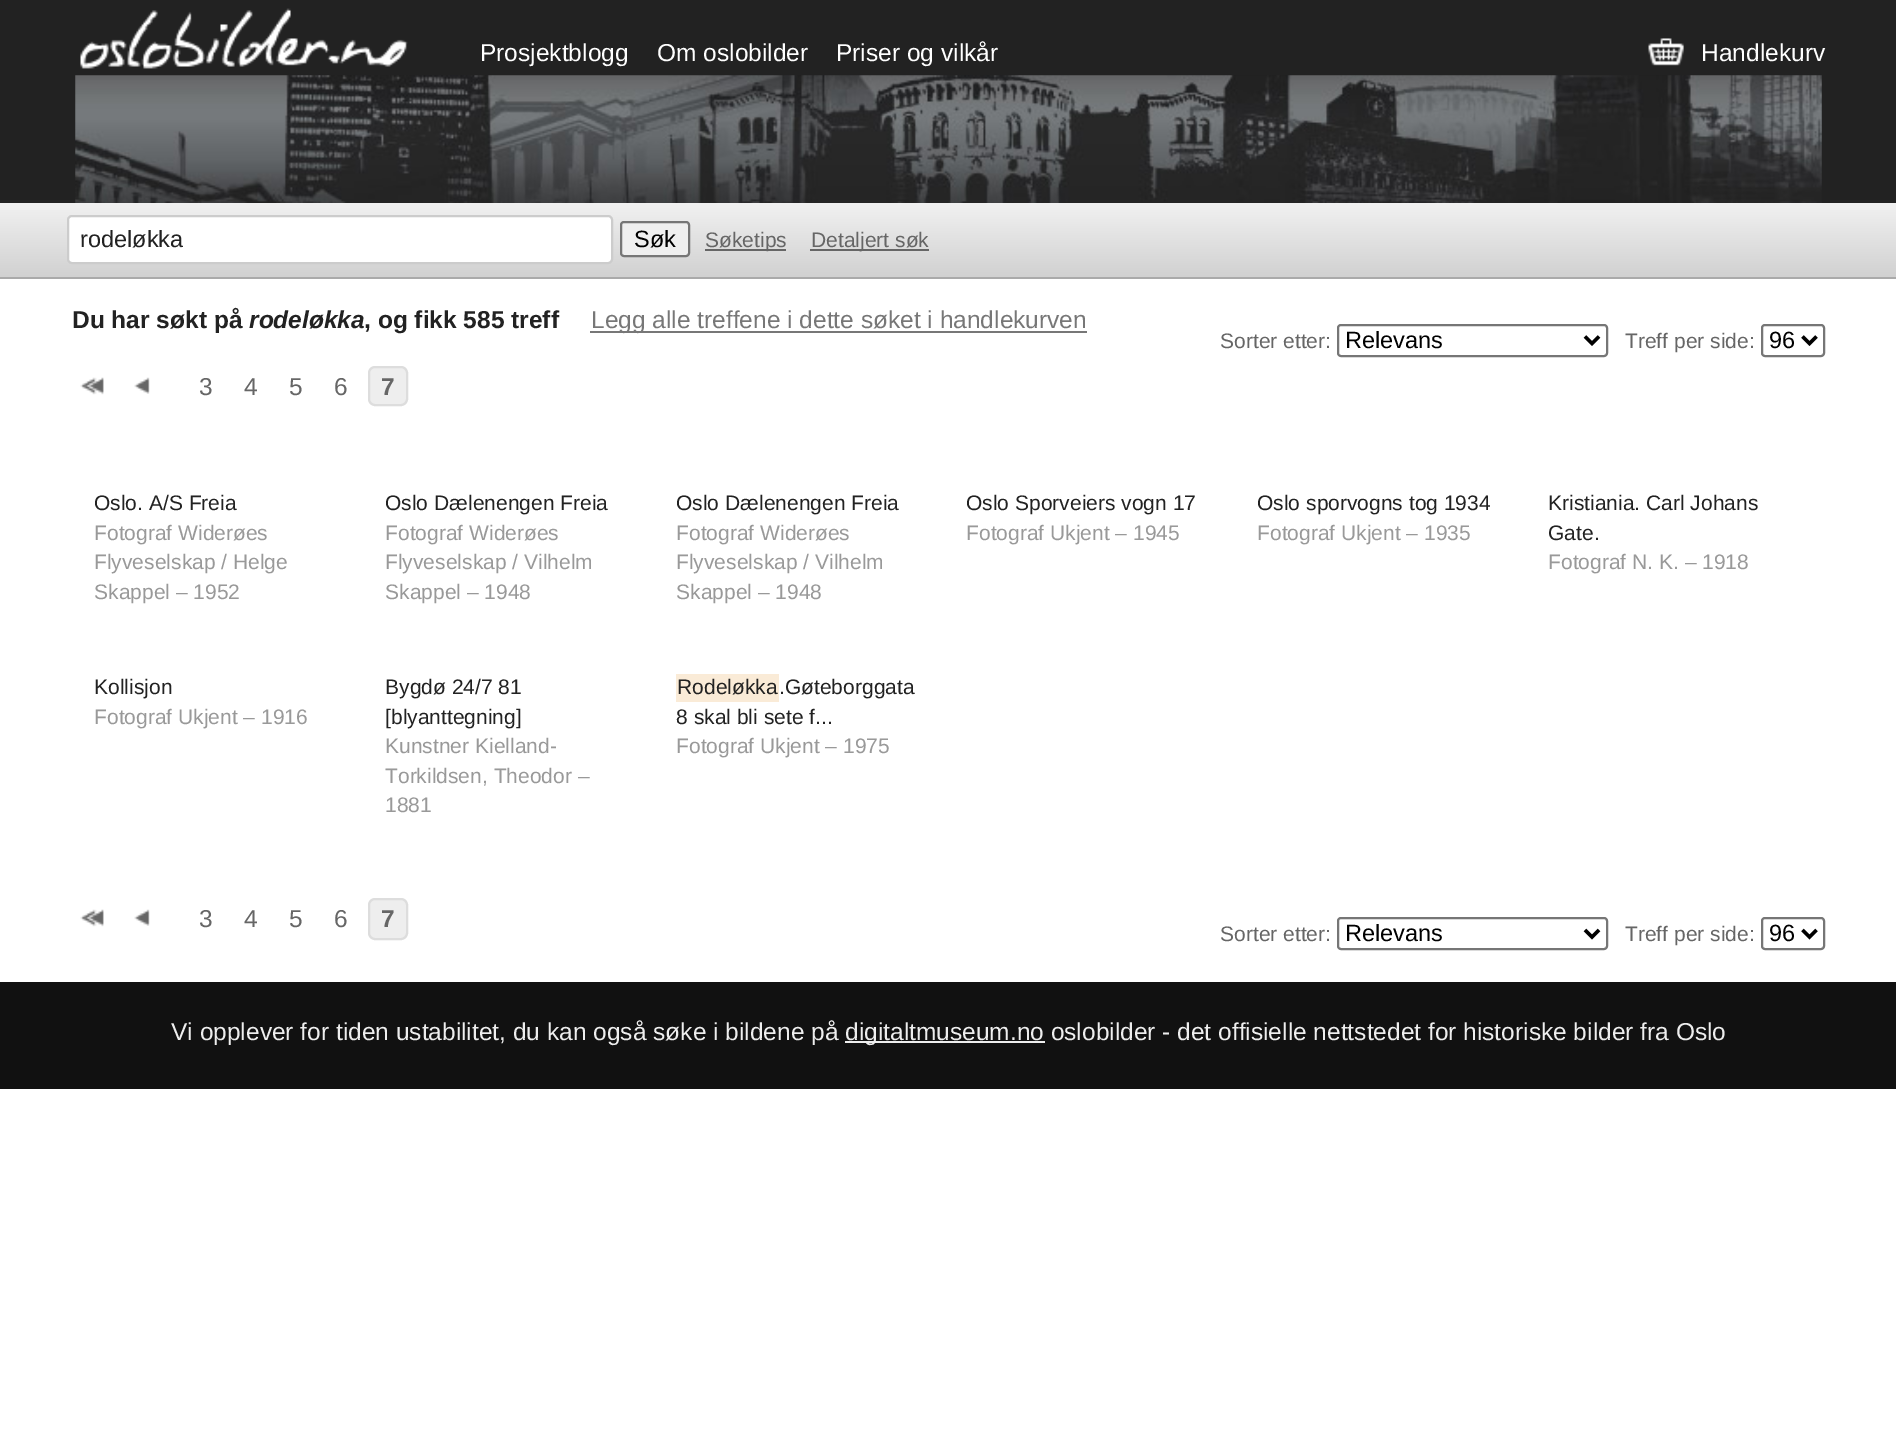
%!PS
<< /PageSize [1896 1435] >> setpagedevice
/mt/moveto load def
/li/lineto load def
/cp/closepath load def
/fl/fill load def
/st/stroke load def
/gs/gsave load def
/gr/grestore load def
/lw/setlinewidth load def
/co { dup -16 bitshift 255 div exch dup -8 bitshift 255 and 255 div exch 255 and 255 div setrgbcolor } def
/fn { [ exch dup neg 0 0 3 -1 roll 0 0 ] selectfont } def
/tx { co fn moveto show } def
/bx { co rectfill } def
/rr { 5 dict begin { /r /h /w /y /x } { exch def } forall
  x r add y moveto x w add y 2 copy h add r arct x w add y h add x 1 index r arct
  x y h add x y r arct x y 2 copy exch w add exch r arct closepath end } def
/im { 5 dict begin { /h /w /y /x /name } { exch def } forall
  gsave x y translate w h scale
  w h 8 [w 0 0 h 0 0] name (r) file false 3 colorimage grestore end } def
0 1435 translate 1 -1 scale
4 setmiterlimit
0 0 1896 1435 16#FFFFFF bx
0 0 1896 203 16#222222 bx
(media/1.raw) 75 75 1747 128 im
(media/2.raw) 80 8 328 61 im
(media/3.raw) 1648 38 36 28 im
gs 0 203 mt 1896 203 li 1896 277 li 0 277 li cp clip newpath
<< /ShadingType 2 /ColorSpace /DeviceRGB /Coords [949 203 949 277] /Extend [true true] /Function << /FunctionType 2 /Domain [0 1] /C0 [.945 .945 .945] /C1 [.82 .82 .82] /N 1 >> >> shfill gr
0 277 1896 2 16#AAAAAA bx
16#FFFFFF co
68 216 544 47 4 rr gs fl gr
16#CCCCCC co
2 lw
st
16#EFEFEF co
621 222 68 34 3 rr gs fl gr
16#767676 co
st
705 249 81 2 16#666666 bx
810 249 119 2 16#666666 bx
590 331 497 2 16#777777 bx
16#767676 co
1338 325 269 31 3 rr st
16#000000 co
3.5 lw
1585 336.5 mt 1592 343.5 li 1599 336.5 li st
16#767676 co
2 lw
1762 325 62 31 3 rr st
16#000000 co
3.5 lw
1802.5 336.5 mt 1809.5 343.5 li 1816.5 336.5 li st
(media/4.raw) 80 377 24 18 im
(media/5.raw) 134 377 16 17 im
16#EEEEEE co
369 367 38 38 6 rr gs fl gr
16#DDDDDD co
2 lw
st
676 674 103 28 16#FAEBD7 bx
(media/4.raw) 80 909 24 18 im
(media/5.raw) 134 909 16 17 im
16#EEEEEE co
369 899 38 40 6 rr gs fl gr
16#DDDDDD co
st
16#767676 co
1338 918 269 31 3 rr st
16#000000 co
3.5 lw
1585 930 mt 1592 937 li 1599 930 li st
16#767676 co
2 lw
1762 918 62 31 3 rr st
16#000000 co
3.5 lw
1802.5 930 mt 1809.5 937 li 1816.5 930 li st
0 982 1896 107 16#111111 bx
845 1041 200 2 16#EEEEEE bx
(Prosjektblogg) 480 61 /LiberationSans-Regular 24.5 16#FFFFFF tx
(Om oslobilder) 657 61 /LiberationSans-Regular 24.5 16#FFFFFF tx
(Priser og vilkår) 836 61 /LiberationSans-Regular 24.5 16#FFFFFF tx
(Handlekurv) 1701 61 /LiberationSans-Regular 24.5 16#FFFFFF tx
(rodeløkka) 80 247 /LiberationSans-Regular 23.5 16#222222 tx
(Søk) 634 247 /LiberationSans-Regular 23.5 16#000000 tx
(Søketips) 705 247 /LiberationSans-Regular 21 16#666666 tx
(Detaljert søk) 811 247 /LiberationSans-Regular 21 16#666666 tx
(Du har søkt på) 72 328 /LiberationSans-Bold 24.5 16#222222 tx
(rodeløkka) 249 328 /LiberationSans-BoldItalic 24.5 16#222222 tx
(, og fikk 585 treff) 364 328 /LiberationSans-Bold 24.5 16#222222 tx
(Legg alle treffene i dette søket i handlekurven) 591 328 /LiberationSans-Regular 24.5 16#777777 tx
(Sorter etter:) 1220 348 /LiberationSans-Regular 21 16#666666 tx
(Relevans) 1345 348 /LiberationSans-Regular 23.5 16#000000 tx
(Treff per side:) 1625 348 /LiberationSans-Regular 21 16#666666 tx
(96) 1769 348 /LiberationSans-Regular 23.5 16#000000 tx
(3) 199 395 /LiberationSans-Regular 24.5 16#666666 tx
(4) 244 395 /LiberationSans-Regular 24.5 16#666666 tx
(5) 289 395 /LiberationSans-Regular 24.5 16#666666 tx
(6) 334 395 /LiberationSans-Regular 24.5 16#666666 tx
(7) 381 395 /LiberationSans-Bold 24.5 16#666666 tx
(Oslo. A/S Freia) 94 510 /LiberationSans-Regular 21 16#222222 tx
(Fotograf Widerøes) 94 540 /LiberationSans-Regular 21 16#999999 tx
(Flyveselskap / Helge) 94 569 /LiberationSans-Regular 21 16#999999 tx
(Skappel – 1952) 94 599 /LiberationSans-Regular 21 16#999999 tx
(Oslo Dælenengen Freia) 385 510 /LiberationSans-Regular 21 16#222222 tx
(Fotograf Widerøes) 385 540 /LiberationSans-Regular 21 16#999999 tx
(Flyveselskap / Vilhelm) 385 569 /LiberationSans-Regular 21 16#999999 tx
(Skappel – 1948) 385 599 /LiberationSans-Regular 21 16#999999 tx
(Oslo Dælenengen Freia) 676 510 /LiberationSans-Regular 21 16#222222 tx
(Fotograf Widerøes) 676 540 /LiberationSans-Regular 21 16#999999 tx
(Flyveselskap / Vilhelm) 676 569 /LiberationSans-Regular 21 16#999999 tx
(Skappel – 1948) 676 599 /LiberationSans-Regular 21 16#999999 tx
(Oslo Sporveiers vogn 17) 966 510 /LiberationSans-Regular 21 16#222222 tx
(Fotograf Ukjent – 1945) 966 540 /LiberationSans-Regular 21 16#999999 tx
(Oslo sporvogns tog 1934) 1257 510 /LiberationSans-Regular 21 16#222222 tx
(Fotograf Ukjent – 1935) 1257 540 /LiberationSans-Regular 21 16#999999 tx
(Kristiania. Carl Johans) 1548 510 /LiberationSans-Regular 21 16#222222 tx
(Gate.) 1548 540 /LiberationSans-Regular 21 16#222222 tx
(Fotograf N. K. – 1918) 1548 569 /LiberationSans-Regular 21 16#999999 tx
(Kollisjon) 94 694 /LiberationSans-Regular 21 16#222222 tx
(Fotograf Ukjent – 1916) 94 724 /LiberationSans-Regular 21 16#999999 tx
(Bygdø 24/7 81) 385 694 /LiberationSans-Regular 21 16#222222 tx
([blyanttegning]) 385 724 /LiberationSans-Regular 21 16#222222 tx
(Kunstner Kielland-) 385 753 /LiberationSans-Regular 21 16#999999 tx
(Torkildsen, Theodor –) 385 783 /LiberationSans-Regular 21 16#999999 tx
(1881) 385 812 /LiberationSans-Regular 21 16#999999 tx
(Rodeløkka) 677 694 /LiberationSans-Regular 21 16#222222 tx
(.Gøteborggata) 779 694 /LiberationSans-Regular 21 16#222222 tx
(8 skal bli sete f...) 676 724 /LiberationSans-Regular 21 16#222222 tx
(Fotograf Ukjent – 1975) 676 753 /LiberationSans-Regular 21 16#999999 tx
(3) 199 927 /LiberationSans-Regular 24.5 16#666666 tx
(4) 244 927 /LiberationSans-Regular 24.5 16#666666 tx
(5) 289 927 /LiberationSans-Regular 24.5 16#666666 tx
(6) 334 927 /LiberationSans-Regular 24.5 16#666666 tx
(7) 381 927 /LiberationSans-Bold 24.5 16#666666 tx
(Sorter etter:) 1220 941 /LiberationSans-Regular 21 16#666666 tx
(Relevans) 1345 941 /LiberationSans-Regular 23.5 16#000000 tx
(Treff per side:) 1625 941 /LiberationSans-Regular 21 16#666666 tx
(96) 1769 941 /LiberationSans-Regular 23.5 16#000000 tx
(Vi opplever for tiden ustabilitet, du kan også søke i bildene på) 171 1040 /LiberationSans-Regular 24.5 16#EEEEEE tx
(digitaltmuseum.no oslobilder - det offisielle nettstedet for historiske bilder fra Oslo) 845 1040 /LiberationSans-Regular 24.5 16#EEEEEE tx
showpage
